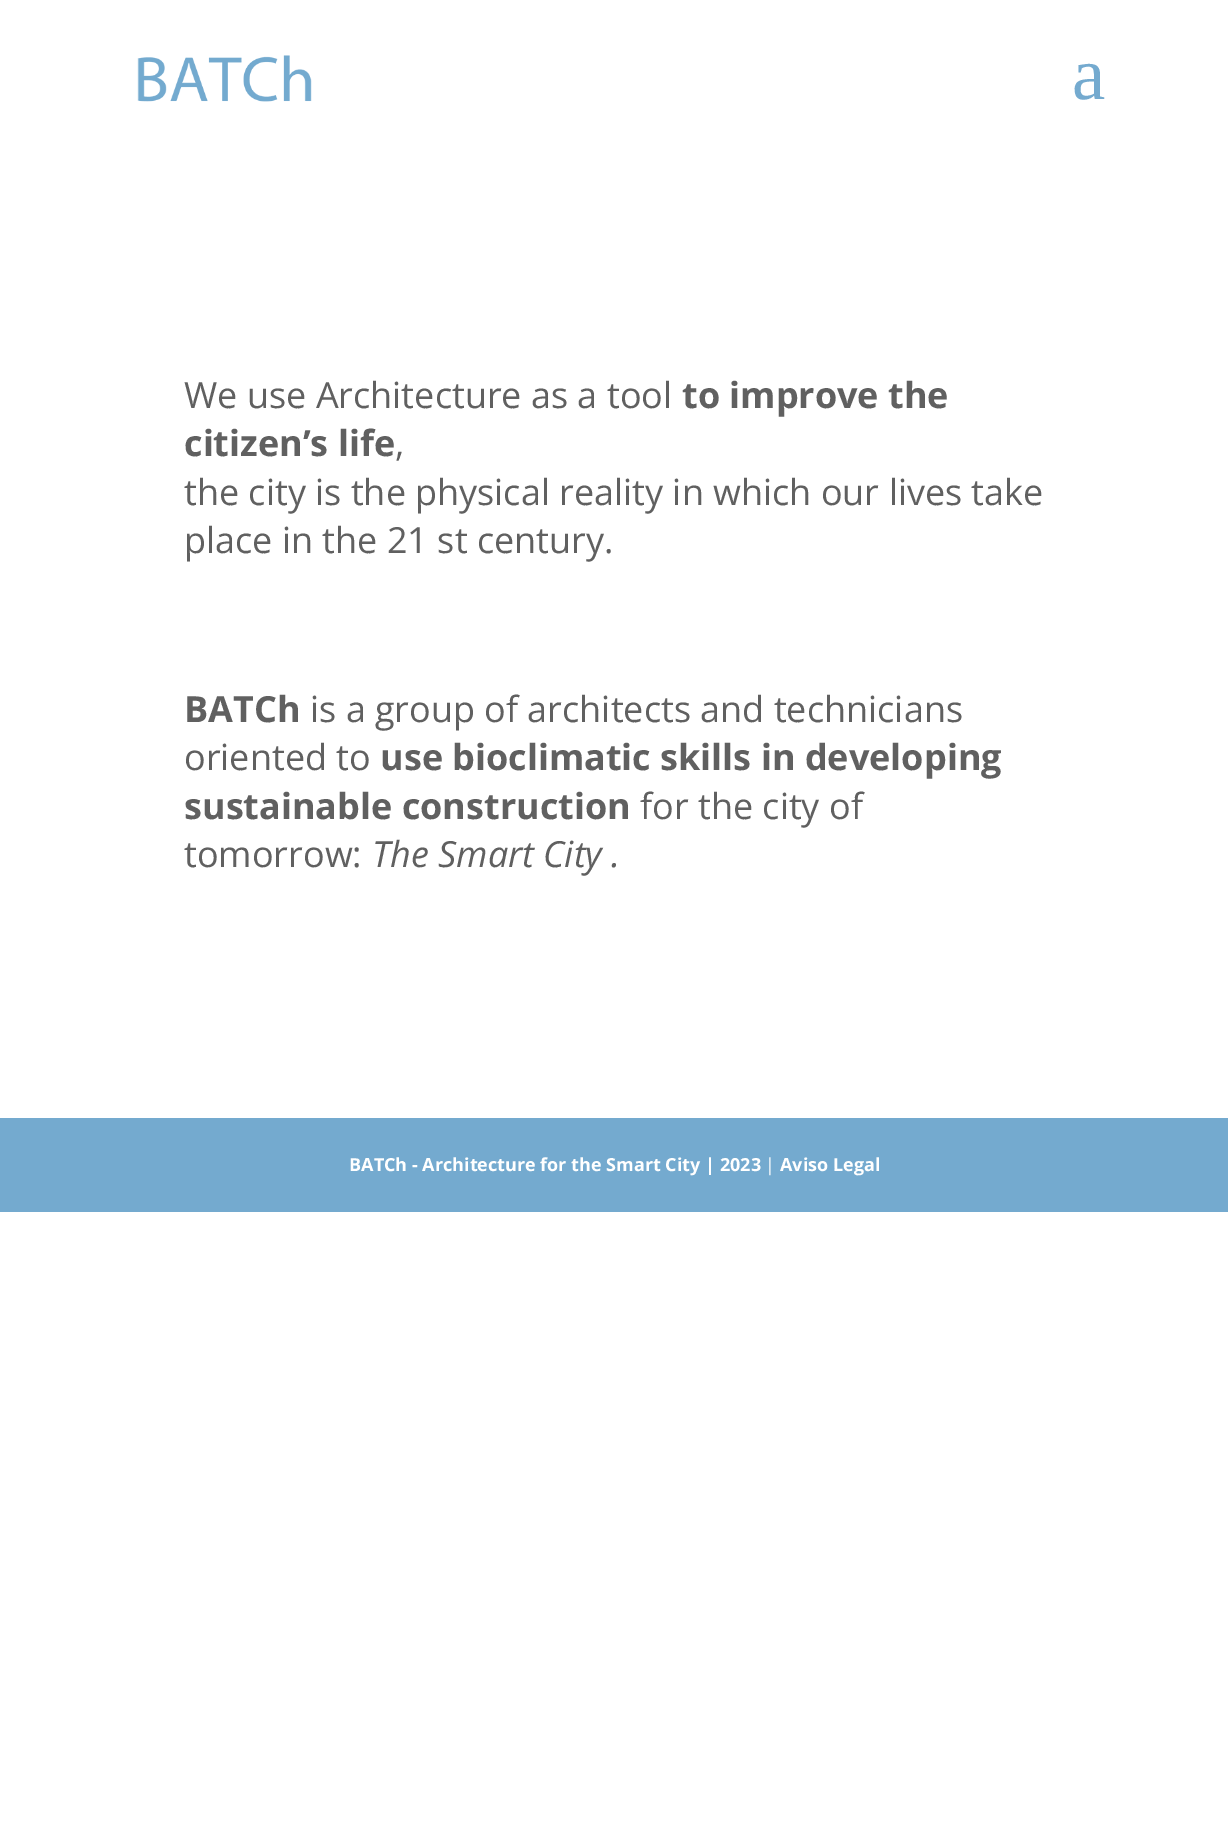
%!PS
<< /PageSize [1228 1822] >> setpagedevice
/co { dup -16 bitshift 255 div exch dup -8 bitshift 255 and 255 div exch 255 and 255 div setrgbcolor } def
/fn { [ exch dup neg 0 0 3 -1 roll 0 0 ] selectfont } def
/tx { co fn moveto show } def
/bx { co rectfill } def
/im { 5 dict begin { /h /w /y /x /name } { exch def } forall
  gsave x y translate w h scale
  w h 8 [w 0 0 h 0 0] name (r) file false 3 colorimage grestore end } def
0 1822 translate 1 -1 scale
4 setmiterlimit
0 0 1228 1822 16#FFFFFF bx
(media/1.raw) 137 55 175 47 im
0 1118 1228 94 16#74AACF bx
(a) 1072 99 /LiberationSerif-Regular 75 16#74AACF tx
(We use Architecture as a tool) 184 408 /OpenSans-Regular 36 16#606060 tx
(to improve the) 682 408 /OpenSans-Bold 36 16#606060 tx
(citizen’s life) 184 456 /OpenSans-Bold 36 16#606060 tx
(,) 395 456 /OpenSans-Regular 36 16#606060 tx
(the city is the physical reality in which our lives take) 184 505 /OpenSans-Regular 36 16#606060 tx
(place in the 21 st century.) 184 553 /OpenSans-Regular 36 16#606060 tx
(BATCh) 184 722 /OpenSans-Bold 36 16#606060 tx
(is a group of architects and technicians) 310 722 /OpenSans-Regular 36 16#606060 tx
(oriented to) 184 770 /OpenSans-Regular 36 16#606060 tx
(use bioclimatic skills in developing) 380 770 /OpenSans-Bold 36 16#606060 tx
(sustainable construction) 184 819 /OpenSans-Bold 36 16#606060 tx
(for the city of) 640 819 /OpenSans-Regular 36 16#606060 tx
(tomorrow:) 184 867 /OpenSans-Regular 36 16#606060 tx
(The Smart City .) 372 867 /OpenSans-Italic 36 16#606060 tx
(BATCh - Architecture for the Smart City | 2023) 349 1171 /OpenSans-Bold 18 16#FFFFFF tx
(|) 765 1171 /OpenSans-Regular 18 16#FFFFFF tx
(Aviso Legal) 780 1171 /OpenSans-Bold 18 16#FFFFFF tx
showpage
